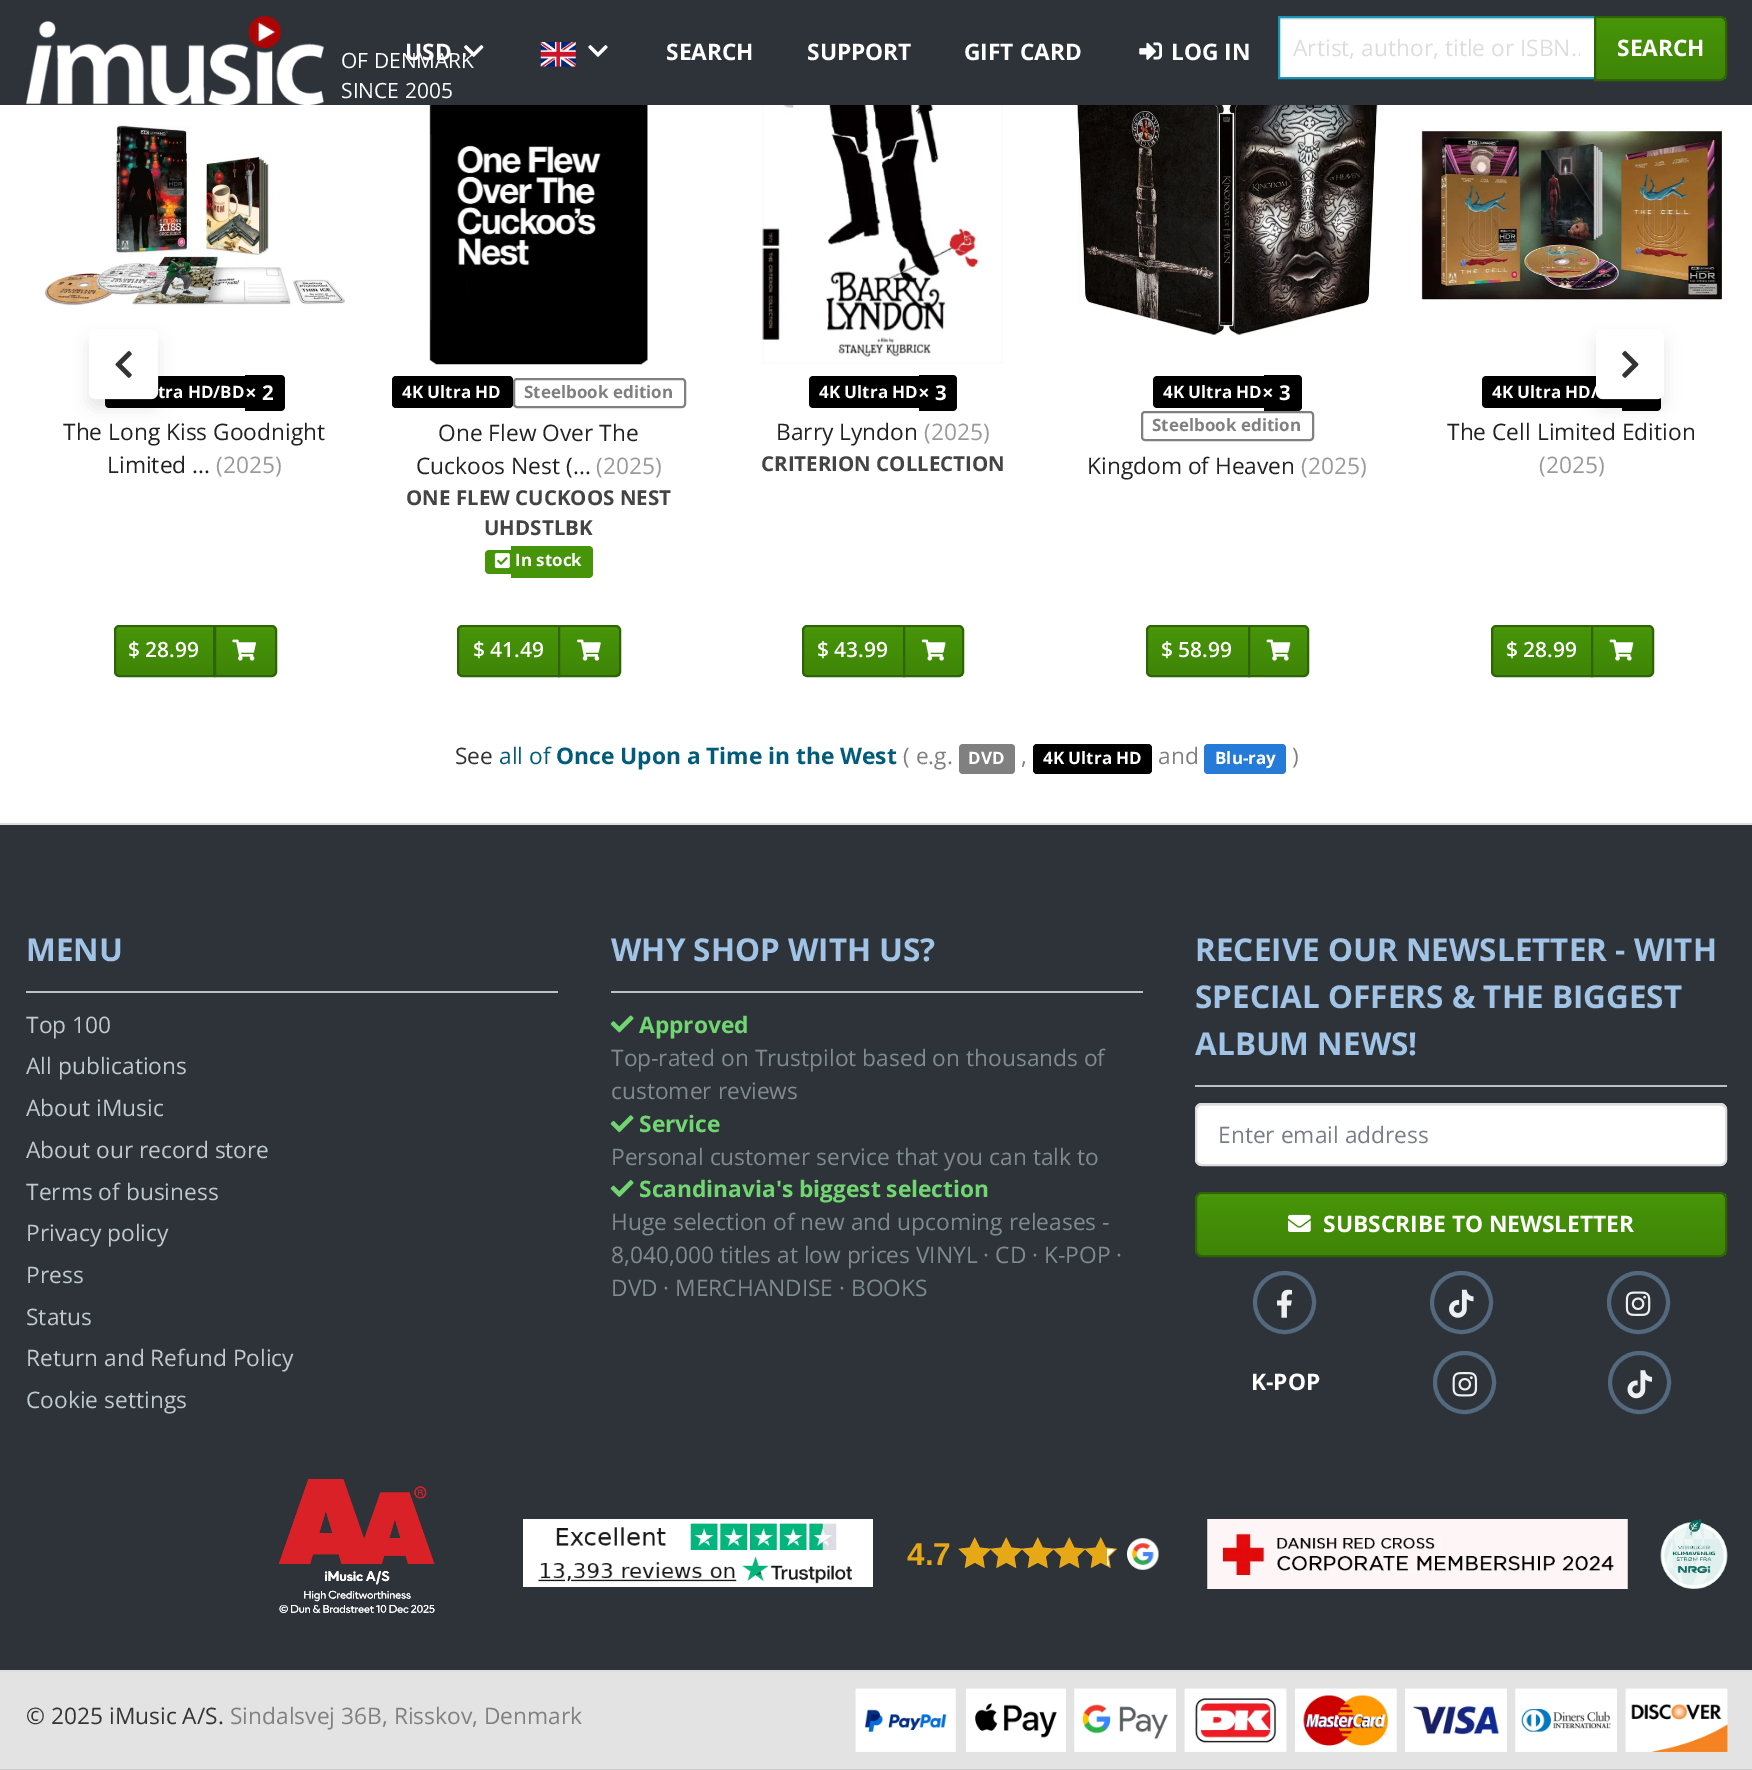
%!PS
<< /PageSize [1752 1770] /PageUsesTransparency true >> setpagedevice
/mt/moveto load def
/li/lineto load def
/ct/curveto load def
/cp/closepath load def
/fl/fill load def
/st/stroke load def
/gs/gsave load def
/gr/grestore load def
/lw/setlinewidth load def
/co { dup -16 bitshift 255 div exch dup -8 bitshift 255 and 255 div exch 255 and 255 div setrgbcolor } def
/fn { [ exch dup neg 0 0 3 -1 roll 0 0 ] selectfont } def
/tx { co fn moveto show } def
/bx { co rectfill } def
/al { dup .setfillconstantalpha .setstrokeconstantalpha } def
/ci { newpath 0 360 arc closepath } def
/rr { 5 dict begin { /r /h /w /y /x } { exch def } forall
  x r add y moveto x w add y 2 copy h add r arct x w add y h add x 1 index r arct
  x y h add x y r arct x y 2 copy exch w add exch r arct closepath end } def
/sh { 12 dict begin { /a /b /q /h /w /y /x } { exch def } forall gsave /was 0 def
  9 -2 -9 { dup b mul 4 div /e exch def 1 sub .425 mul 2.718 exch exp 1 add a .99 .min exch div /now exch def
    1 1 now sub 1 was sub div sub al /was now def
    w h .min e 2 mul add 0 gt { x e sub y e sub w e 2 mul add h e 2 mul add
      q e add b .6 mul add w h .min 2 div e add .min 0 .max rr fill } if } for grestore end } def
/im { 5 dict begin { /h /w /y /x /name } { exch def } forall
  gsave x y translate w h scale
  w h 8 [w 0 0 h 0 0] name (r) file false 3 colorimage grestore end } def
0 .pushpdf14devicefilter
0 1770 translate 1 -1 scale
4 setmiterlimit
0 0 1752 1770 16#FFFFFF bx
0 0 1752 105 16#2D3339 bx
(media/2.raw) 540 42 36 25 im
(media/3.raw) 588 45 20 12 im
(media/4.raw) 1139 42 23 18 im
1280 18 314 59 16#FFFFFF bx
0.07 al
1279 18 315 2 16#000000 bx
1 al
16#1993B6 co
2 lw
1279 17 316 61 rectstroke
gs 1596 18 mt 1726 18 li 1726 79 li 1596 79 li cp clip newpath
<< /ShadingType 2 /ColorSpace /DeviceRGB /Coords [1661 17 1661 79] /Extend [true true] /Function << /FunctionType 3 /Domain [0 1] /Functions [<< /FunctionType 2 /Domain [0 1] /C0 [.302 .639 .035] /C1 [.275 .58 .031] /N 1 >> << /FunctionType 2 /Domain [0 1] /C0 [.275 .58 .031] /C1 [.247 .522 .027] /N 1 >>] /Bounds [.06] /Encode [0 1 0 1] >> >> shfill gr
16#2F6405 co
1595 17 mt 1720 17 li 1723.5 17 1726 19.5 1726 23 ct 1726 74 li 1726 77.5 1723.5 80 1720 80 ct 1595 80 li cp st
(media/5.raw) 26 15 298 90 im
16#000000 co
109 376 mt 245 376 li 245 408 li 109 408 li 107 408 105 406 105 404 ct 105 380 li 105 378 107 376 109 376 ct cp fl
89 338 69 70 7 8 .1 sh
16#FFFFFF co
89 329 69 70 7 rr fl
0.5 al
4 lw
91 331 65 66 5 rr st
1 al
(media/6.raw) 115 351 17 27 im
16#000000 co
1486 376 mt 1622 376 li 1622 408 li 1486 408 li 1484 408 1482 406 1482 404 ct 1482 380 li 1482 378 1484 376 1486 376 ct cp fl
1622 375 mt 1657 375 li 1659 375 1661 377 1661 379 ct 1661 407 li 1661 409 1659 411 1657 411 ct 1622 411 li cp fl
1596 338 68 70 7 8 .1 sh
16#FFFFFF co
1596 329 68 70 7 rr fl
(media/8.raw) 44 125 301 181 im
(media/9.raw) 45 126 300 179 im
16#000000 co
245 375 mt 281 375 li 283 375 285 377 285 379 ct 285 407 li 285 409 283 411 281 411 ct 245 411 li cp fl
gs 116 627 mt 213 627 li 213 675 li 116 675 li cp clip newpath
<< /ShadingType 2 /ColorSpace /DeviceRGB /Coords [164 627 164 676] /Extend [true true] /Function << /FunctionType 3 /Domain [0 1] /Functions [<< /FunctionType 2 /Domain [0 1] /C0 [.302 .639 .035] /C1 [.275 .58 .031] /N 1 >> << /FunctionType 2 /Domain [0 1] /C0 [.275 .58 .031] /C1 [.247 .522 .027] /N 1 >>] /Bounds [.06] /Encode [0 1 0 1] >> >> shfill gr
16#2F6405 co
2 lw
119 626 mt 214 626 li 214 676 li 119 676 li 117 676 115 674 115 672 ct 115 630 li 115 628 117 626 119 626 ct cp st
gs 216 627 mt 275 627 li 275 675 li 216 675 li cp clip newpath
<< /ShadingType 2 /ColorSpace /DeviceRGB /Coords [245 627 245 676] /Extend [true true] /Function << /FunctionType 3 /Domain [0 1] /Functions [<< /FunctionType 2 /Domain [0 1] /C0 [.302 .639 .035] /C1 [.275 .58 .031] /N 1 >> << /FunctionType 2 /Domain [0 1] /C0 [.275 .58 .031] /C1 [.247 .522 .027] /N 1 >>] /Bounds [.06] /Encode [0 1 0 1] >> >> shfill gr
215 626 mt 272 626 li 274 626 276 628 276 630 ct 276 672 li 276 674 274 676 272 676 ct 215 676 li cp st
(media/10.raw) 232 639 24 22 im
(media/11.raw) 429 105 219 260 im
(media/12.raw) 430 105 218 259 im
16#000000 co
392 376 121 32 4 rr fl
16#808080 co
514 379 171 28 3 rr st
16#469408 co
489 550 mt 511 550 li 511 574 li 489 574 li 487 574 485 572 485 570 ct 485 554 li 485 552 487 550 489 550 ct cp fl
511 546 mt 589 546 li 591 546 593 548 593 550 ct 593 574 li 593 576 591 578 589 578 ct 511 578 li cp fl
(media/13.raw) 494 553 16 16 im
gs 459 627 mt 558 627 li 558 675 li 459 675 li cp clip newpath
<< /ShadingType 2 /ColorSpace /DeviceRGB /Coords [508 627 508 676] /Extend [true true] /Function << /FunctionType 3 /Domain [0 1] /Functions [<< /FunctionType 2 /Domain [0 1] /C0 [.302 .639 .035] /C1 [.275 .58 .031] /N 1 >> << /FunctionType 2 /Domain [0 1] /C0 [.275 .58 .031] /C1 [.247 .522 .027] /N 1 >>] /Bounds [.06] /Encode [0 1 0 1] >> >> shfill gr
16#2F6405 co
462 626 mt 559 626 li 559 676 li 462 676 li 460 676 458 674 458 672 ct 458 630 li 458 628 460 626 462 626 ct cp st
gs 560 627 mt 620 627 li 620 676 li 560 676 li cp clip newpath
<< /ShadingType 2 /ColorSpace /DeviceRGB /Coords [589 627 589 676] /Extend [true true] /Function << /FunctionType 3 /Domain [0 1] /Functions [<< /FunctionType 2 /Domain [0 1] /C0 [.302 .639 .035] /C1 [.275 .58 .031] /N 1 >> << /FunctionType 2 /Domain [0 1] /C0 [.275 .58 .031] /C1 [.247 .522 .027] /N 1 >>] /Bounds [.06] /Encode [0 1 0 1] >> >> shfill gr
559 626 mt 616 626 li 618 626 620 628 620 630 ct 620 672 li 620 674 618 676 616 676 ct 559 676 li cp st
(media/14.raw) 577 639 24 22 im
(media/15.raw) 762 105 241 258 im
(media/16.raw) 762 105 240 259 im
16#000000 co
813 376 mt 919 376 li 919 408 li 813 408 li 811 408 809 406 809 404 ct 809 380 li 809 378 811 376 813 376 ct cp fl
919 375 mt 953 375 li 955 375 957 377 957 379 ct 957 407 li 957 409 955 411 953 411 ct 919 411 li cp fl
gs 803 627 mt 903 627 li 903 676 li 803 676 li cp clip newpath
<< /ShadingType 2 /ColorSpace /DeviceRGB /Coords [853 627 853 676] /Extend [true true] /Function << /FunctionType 3 /Domain [0 1] /Functions [<< /FunctionType 2 /Domain [0 1] /C0 [.302 .639 .035] /C1 [.275 .58 .031] /N 1 >> << /FunctionType 2 /Domain [0 1] /C0 [.275 .58 .031] /C1 [.247 .522 .027] /N 1 >>] /Bounds [.06] /Encode [0 1 0 1] >> >> shfill gr
16#2F6405 co
807 626 mt 904 626 li 904 676 li 807 676 li 805 676 803 674 803 672 ct 803 630 li 803 628 805 626 807 626 ct cp st
gs 905 627 mt 963 627 li 963 676 li 905 676 li cp clip newpath
<< /ShadingType 2 /ColorSpace /DeviceRGB /Coords [933 627 933 676] /Extend [true true] /Function << /FunctionType 3 /Domain [0 1] /Functions [<< /FunctionType 2 /Domain [0 1] /C0 [.302 .639 .035] /C1 [.275 .58 .031] /N 1 >> << /FunctionType 2 /Domain [0 1] /C0 [.275 .58 .031] /C1 [.247 .522 .027] /N 1 >>] /Bounds [.06] /Encode [0 1 0 1] >> >> shfill gr
904 626 mt 959 626 li 961 626 963 628 963 630 ct 963 672 li 963 674 961 676 959 676 ct 904 676 li cp st
(media/17.raw) 921 639 25 22 im
(media/18.raw) 1077 105 301 230 im
(media/19.raw) 1078 105 299 230 im
16#000000 co
1157 376 mt 1264 376 li 1264 408 li 1157 408 li 1155 408 1153 406 1153 404 ct 1153 380 li 1153 378 1155 376 1157 376 ct cp fl
1264 375 mt 1298 375 li 1300 375 1302 377 1302 379 ct 1302 407 li 1302 409 1300 411 1298 411 ct 1264 411 li cp fl
16#808080 co
1142 412 171 28 3 rr st
gs 1148 627 mt 1248 627 li 1248 675 li 1148 675 li cp clip newpath
<< /ShadingType 2 /ColorSpace /DeviceRGB /Coords [1198 627 1198 676] /Extend [true true] /Function << /FunctionType 3 /Domain [0 1] /Functions [<< /FunctionType 2 /Domain [0 1] /C0 [.302 .639 .035] /C1 [.275 .58 .031] /N 1 >> << /FunctionType 2 /Domain [0 1] /C0 [.275 .58 .031] /C1 [.247 .522 .027] /N 1 >>] /Bounds [.06] /Encode [0 1 0 1] >> >> shfill gr
16#2F6405 co
1151 626 mt 1249 626 li 1249 676 li 1151 676 li 1149 676 1147 674 1147 672 ct 1147 630 li 1147 628 1149 626 1151 626 ct cp st
gs 1250 627 mt 1307 627 li 1307 675 li 1250 675 li cp clip newpath
<< /ShadingType 2 /ColorSpace /DeviceRGB /Coords [1278 627 1278 676] /Extend [true true] /Function << /FunctionType 3 /Domain [0 1] /Functions [<< /FunctionType 2 /Domain [0 1] /C0 [.302 .639 .035] /C1 [.275 .58 .031] /N 1 >> << /FunctionType 2 /Domain [0 1] /C0 [.275 .58 .031] /C1 [.247 .522 .027] /N 1 >>] /Bounds [.06] /Encode [0 1 0 1] >> >> shfill gr
1249 626 mt 1304 626 li 1306 626 1308 628 1308 630 ct 1308 672 li 1308 674 1306 676 1304 676 ct 1249 676 li cp st
(media/20.raw) 1266 639 25 22 im
(media/21.raw) 1421 131 301 169 im
(media/22.raw) 1422 131 300 168 im
gs 1493 627 mt 1591 627 li 1591 675 li 1493 675 li cp clip newpath
<< /ShadingType 2 /ColorSpace /DeviceRGB /Coords [1541 627 1541 676] /Extend [true true] /Function << /FunctionType 3 /Domain [0 1] /Functions [<< /FunctionType 2 /Domain [0 1] /C0 [.302 .639 .035] /C1 [.275 .58 .031] /N 1 >> << /FunctionType 2 /Domain [0 1] /C0 [.275 .58 .031] /C1 [.247 .522 .027] /N 1 >>] /Bounds [.06] /Encode [0 1 0 1] >> >> shfill gr
1496 626 mt 1592 626 li 1592 676 li 1496 676 li 1494 676 1492 674 1492 672 ct 1492 630 li 1492 628 1494 626 1496 626 ct cp st
gs 1593 627 mt 1652 627 li 1652 675 li 1593 675 li cp clip newpath
<< /ShadingType 2 /ColorSpace /DeviceRGB /Coords [1622 627 1622 676] /Extend [true true] /Function << /FunctionType 3 /Domain [0 1] /Functions [<< /FunctionType 2 /Domain [0 1] /C0 [.302 .639 .035] /C1 [.275 .58 .031] /N 1 >> << /FunctionType 2 /Domain [0 1] /C0 [.275 .58 .031] /C1 [.247 .522 .027] /N 1 >>] /Bounds [.06] /Encode [0 1 0 1] >> >> shfill gr
1592 626 mt 1649 626 li 1651 626 1653 628 1653 630 ct 1653 672 li 1653 674 1651 676 1649 676 ct 1592 676 li cp st
(media/20.raw) 1609 639 25 22 im
16#808080 co
959 744 56 30 4 rr fl
16#000000 co
1033 744 119 30 4 rr fl
16#277BD8 co
1204 744 82 30 4 rr fl
0 825 1752 845 16#2D3339 bx
0 823 1752 2 16#DDDDDD bx
0 1769 1752 1 16#CCCCCC bx
26 991 532 2 16#BAC1C8 bx
611 991 532 2 16#BAC1C8 bx
(media/23.raw) 610 1015 24 18 im
(media/24.raw) 610 1115 24 18 im
(media/25.raw) 610 1180 24 17 im
1195 1085 532 2 16#BAC1C8 bx
16#FFFFFF co
1195 1103 532 63 7 rr fl
16#ECECEC co
1202 1106 mt 1720 1106 li 1723 1106 1726 1108 1726 1111 ct 1726 1108 1725 1104 1721 1104 ct 1202 1104 li 1198 1104 1197 1108 1197 1111 ct 1197 1108 1199 1106 1202 1106 ct cp fl
16#DDDDDD co
1196 1104 530 61 6 rr st
gs 1197 1194 mt 1726 1194 li 1726 1255 li 1197 1255 li cp clip newpath
<< /ShadingType 2 /ColorSpace /DeviceRGB /Coords [1461 1194 1461 1255] /Extend [true true] /Function << /FunctionType 3 /Domain [0 1] /Functions [<< /FunctionType 2 /Domain [0 1] /C0 [.302 .639 .035] /C1 [.275 .58 .031] /N 1 >> << /FunctionType 2 /Domain [0 1] /C0 [.275 .58 .031] /C1 [.247 .522 .027] /N 1 >>] /Bounds [.06] /Encode [0 1 0 1] >> >> shfill gr
16#2F6405 co
1196 1193 530 63 6 rr st
(media/26.raw) 1288 1214 23 18 im
16#54697E co
4 lw
1284.5 1302.5 29.5 ci st
(media/27.raw) 1277 1289 15 29 im
1461.5 1302.5 29.5 ci st
(media/28.raw) 1449 1289 25 29 im
1638.5 1302.5 29.5 ci st
(media/29.raw) 1625 1291 26 25 im
1464.5 1382.5 29.5 ci st
(media/30.raw) 1452 1372 26 25 im
1639.5 1382.5 29.5 ci st
(media/31.raw) 1627 1370 25 29 im
(media/32.raw) 278 1479 157 134 im
(media/33.raw) 278 1479 157 134 im
523 1519 350 68 16#FFFFFF bx
(media/34.raw) 1207 1519 421 70 im
(media/35.raw) 1207 1519 421 70 im
(media/36.raw) 1660 1519 68 70 im
(media/37.raw) 538 1523 314 61 im
(media/38.raw) 958 1537 160 32 im
(media/39.raw) 1127 1538 32 32 im
(media/40.raw) 1660 1519 68 70 im
0 1672 1752 97 16#E3E3E3 bx
0 1670 1752 2 16#DDDDDD bx
(media/41.raw) 855 1688 101 64 im
(media/42.raw) 855 1688 101 64 im
(media/43.raw) 966 1688 100 64 im
(media/44.raw) 966 1688 100 64 im
(media/45.raw) 1074 1688 102 64 im
(media/46.raw) 1074 1688 102 64 im
(media/47.raw) 1184 1688 103 64 im
(media/48.raw) 1184 1688 103 64 im
(media/49.raw) 1295 1688 102 64 im
(media/50.raw) 1295 1688 102 64 im
(media/51.raw) 1405 1688 102 64 im
(media/52.raw) 1405 1688 102 64 im
(media/53.raw) 1515 1688 102 64 im
(media/54.raw) 1515 1688 102 64 im
(media/55.raw) 1625 1688 103 64 im
(media/56.raw) 1625 1688 103 64 im
(SEARCH) 666 60 /OpenSans-Bold 22.75 16#FFFFFF tx
(SUPPORT) 807 60 /OpenSans-Bold 22.75 16#FFFFFF tx
(GIFT CARD) 964 60 /OpenSans-Bold 22.75 16#FFFFFF tx
(LOG IN) 1171 60 /OpenSans-Bold 22.75 16#FFFFFF tx
gs
1293 32 287 31 rectclip
(Artist, author, title or ISBN..) 1293 56 /OpenSans-Regular 22.75 16#DDDDDD tx
gr
(SEARCH) 1617 56 /OpenSans-Bold 22.75 16#FFFFFF tx
(OF DENMARK) 341 68 /OpenSans-Regular 21 16#FFFFFF tx
(media/1.raw) 464 45 20 12 im
(USD) 405 60 /OpenSans-Bold 22.75 16#FFFFFF tx
(SINCE 2005) 341 98 /OpenSans-Regular 21 16#FFFFFF tx
(tra HD/BD) 158 398 /OpenSans-Bold 17 16#FFFFFF tx
(× 2) 245 400 /OpenSans-Bold 20.5 16#FFFFFF tx
(The Long Kiss Goodnight) 63 440 /OpenSans-Regular 22.75 16#222222 tx
(Limited ...) 107 473 /OpenSans-Regular 22.75 16#222222 tx
(\(2025\)) 216 473 /OpenSans-Regular 22.75 16#999999 tx
($ 28.99) 128 657 /OpenSans-SemiBold 21 16#FFFFFF tx
(4K Ultra HD) 402 398 /OpenSans-Bold 17 16#FFFFFF tx
(Steelbook edition) 524 398 /OpenSans-Bold 17 16#808080 tx
(One Flew Over The) 438 441 /OpenSans-Regular 22.75 16#222222 tx
(Cuckoos Nest \(...) 416 474 /OpenSans-Regular 22.75 16#222222 tx
(\(2025\)) 596 474 /OpenSans-Regular 22.75 16#999999 tx
(ONE FLEW CUCKOOS NEST) 406 505 /OpenSans-Bold 20.5 16#444444 tx
(UHDSTLBK) 484 535 /OpenSans-Bold 20.5 16#444444 tx
(In stock) 515 566 /OpenSans-Bold 17 16#FFFFFF tx
($ 41.49) 473 657 /OpenSans-SemiBold 21 16#FFFFFF tx
(4K Ultra HD) 819 398 /OpenSans-Bold 17 16#FFFFFF tx
(× 3) 918 400 /OpenSans-Bold 20.5 16#FFFFFF tx
(Barry Lyndon) 776 440 /OpenSans-Regular 22.75 16#222222 tx
(\(2025\)) 924 440 /OpenSans-Regular 22.75 16#999999 tx
(CRITERION COLLECTION) 761 471 /OpenSans-Bold 20.5 16#444444 tx
($ 43.99) 817 657 /OpenSans-SemiBold 21 16#FFFFFF tx
(4K Ultra HD) 1163 398 /OpenSans-Bold 17 16#FFFFFF tx
(× 3) 1262 400 /OpenSans-Bold 20.5 16#FFFFFF tx
(Steelbook edition) 1152 431 /OpenSans-Bold 17 16#808080 tx
(Kingdom of Heaven) 1087 474 /OpenSans-Regular 22.75 16#222222 tx
(\(2025\)) 1301 474 /OpenSans-Regular 22.75 16#999999 tx
($ 58.99) 1161 657 /OpenSans-SemiBold 21 16#FFFFFF tx
(4K Ultra HD/) 1492 398 /OpenSans-Bold 17 16#FFFFFF tx
0.5 al
1598 331 64 66 5 rr st
1 al
(media/7.raw) 1622 351 17 27 im
(The Cell Limited Edition) 1447 440 /OpenSans-Regular 22.75 16#222222 tx
(\(2025\)) 1539 473 /OpenSans-Regular 22.75 16#999999 tx
($ 28.99) 1506 657 /OpenSans-SemiBold 21 16#FFFFFF tx
(See) 455 764 /OpenSans-Regular 22.75 16#333333 tx
(all of) 499 764 /OpenSans-Regular 22.75 16#015B7B tx
(Once Upon a Time in the West) 556 764 /OpenSans-Bold 22.75 16#015B7B tx
(\( e.g.) 903 764 /OpenSans-Regular 22.75 16#808080 tx
(DVD) 968 764 /OpenSans-Bold 17 16#FFFFFF tx
(,) 1021 764 /OpenSans-Regular 22.75 16#808080 tx
(4K Ultra HD) 1043 764 /OpenSans-Bold 17 16#FFFFFF tx
(and) 1158 764 /OpenSans-Regular 22.75 16#808080 tx
(Blu-ray) 1215 764 /OpenSans-Bold 17 16#FFFFFF tx
(\)) 1292 764 /OpenSans-Regular 22.75 16#808080 tx
(MENU) 26 961 /OpenSans-Bold 31.5 16#A1C4E6 tx
(Top 100) 26 1033 /OpenSans-Regular 22.75 16#BECAD0 tx
(All publications) 26 1074 /OpenSans-Regular 22.75 16#BECAD0 tx
(About iMusic) 26 1116 /OpenSans-Regular 22.75 16#BECAD0 tx
(About our record store) 26 1158 /OpenSans-Regular 22.75 16#BECAD0 tx
(Terms of business) 26 1200 /OpenSans-Regular 22.75 16#BECAD0 tx
(Privacy policy) 26 1241 /OpenSans-Regular 22.75 16#BECAD0 tx
(Press) 26 1283 /OpenSans-Regular 22.75 16#BECAD0 tx
(Status) 26 1325 /OpenSans-Regular 22.75 16#BECAD0 tx
(Return and Refund Policy) 26 1366 /OpenSans-Regular 22.75 16#BECAD0 tx
(Cookie settings) 26 1408 /OpenSans-Regular 22.75 16#BECAD0 tx
(WHY SHOP WITH US?) 611 961 /OpenSans-Bold 31.5 16#A1C4E6 tx
(Approved) 639 1033 /OpenSans-Bold 22.75 16#71D672 tx
(Top-rated on Trustpilot based on thousands of) 611 1066 /OpenSans-Regular 22.75 16#7F8C8D tx
(customer reviews) 611 1099 /OpenSans-Regular 22.75 16#7F8C8D tx
(Service) 639 1132 /OpenSans-Bold 22.75 16#71D672 tx
(Personal customer service that you can talk to) 611 1165 /OpenSans-Regular 22.75 16#7F8C8D tx
(Scandinavia's biggest selection) 639 1197 /OpenSans-Bold 22.75 16#71D672 tx
(Huge selection of new and upcoming releases -) 611 1230 /OpenSans-Regular 22.75 16#7F8C8D tx
(8,040,000 titles at low prices VINYL · CD · K-POP ·) 611 1263 /OpenSans-Regular 22.75 16#7F8C8D tx
(DVD · MERCHANDISE · BOOKS) 611 1296 /OpenSans-Regular 22.75 16#7F8C8D tx
(RECEIVE OUR NEWSLETTER - WITH) 1195 961 /OpenSans-Bold 31.5 16#A1C4E6 tx
(SPECIAL OFFERS & THE BIGGEST) 1195 1008 /OpenSans-Bold 31.5 16#A1C4E6 tx
(ALBUM NEWS!) 1195 1055 /OpenSans-Bold 31.5 16#A1C4E6 tx
(Enter email address) 1218 1143 /OpenSans-Regular 22.75 16#787D86 tx
(SUBSCRIBE TO NEWSLETTER) 1323 1232 /OpenSans-Bold 22.75 16#FFFFFF tx
(K-POP) 1251 1390 /OpenSans-Bold 22.75 16#FFFFFF tx
(4.7) 907 1565 /LiberationSans-Bold 31.5 16#E6A817 tx
(© 2025 iMusic A/S.) 26 1724 /OpenSans-Regular 22.75 16#333333 tx
(Sindalsvej 36B, Risskov, Denmark) 230 1724 /OpenSans-Regular 22.75 16#808080 tx
.poppdf14devicefilter showpage
